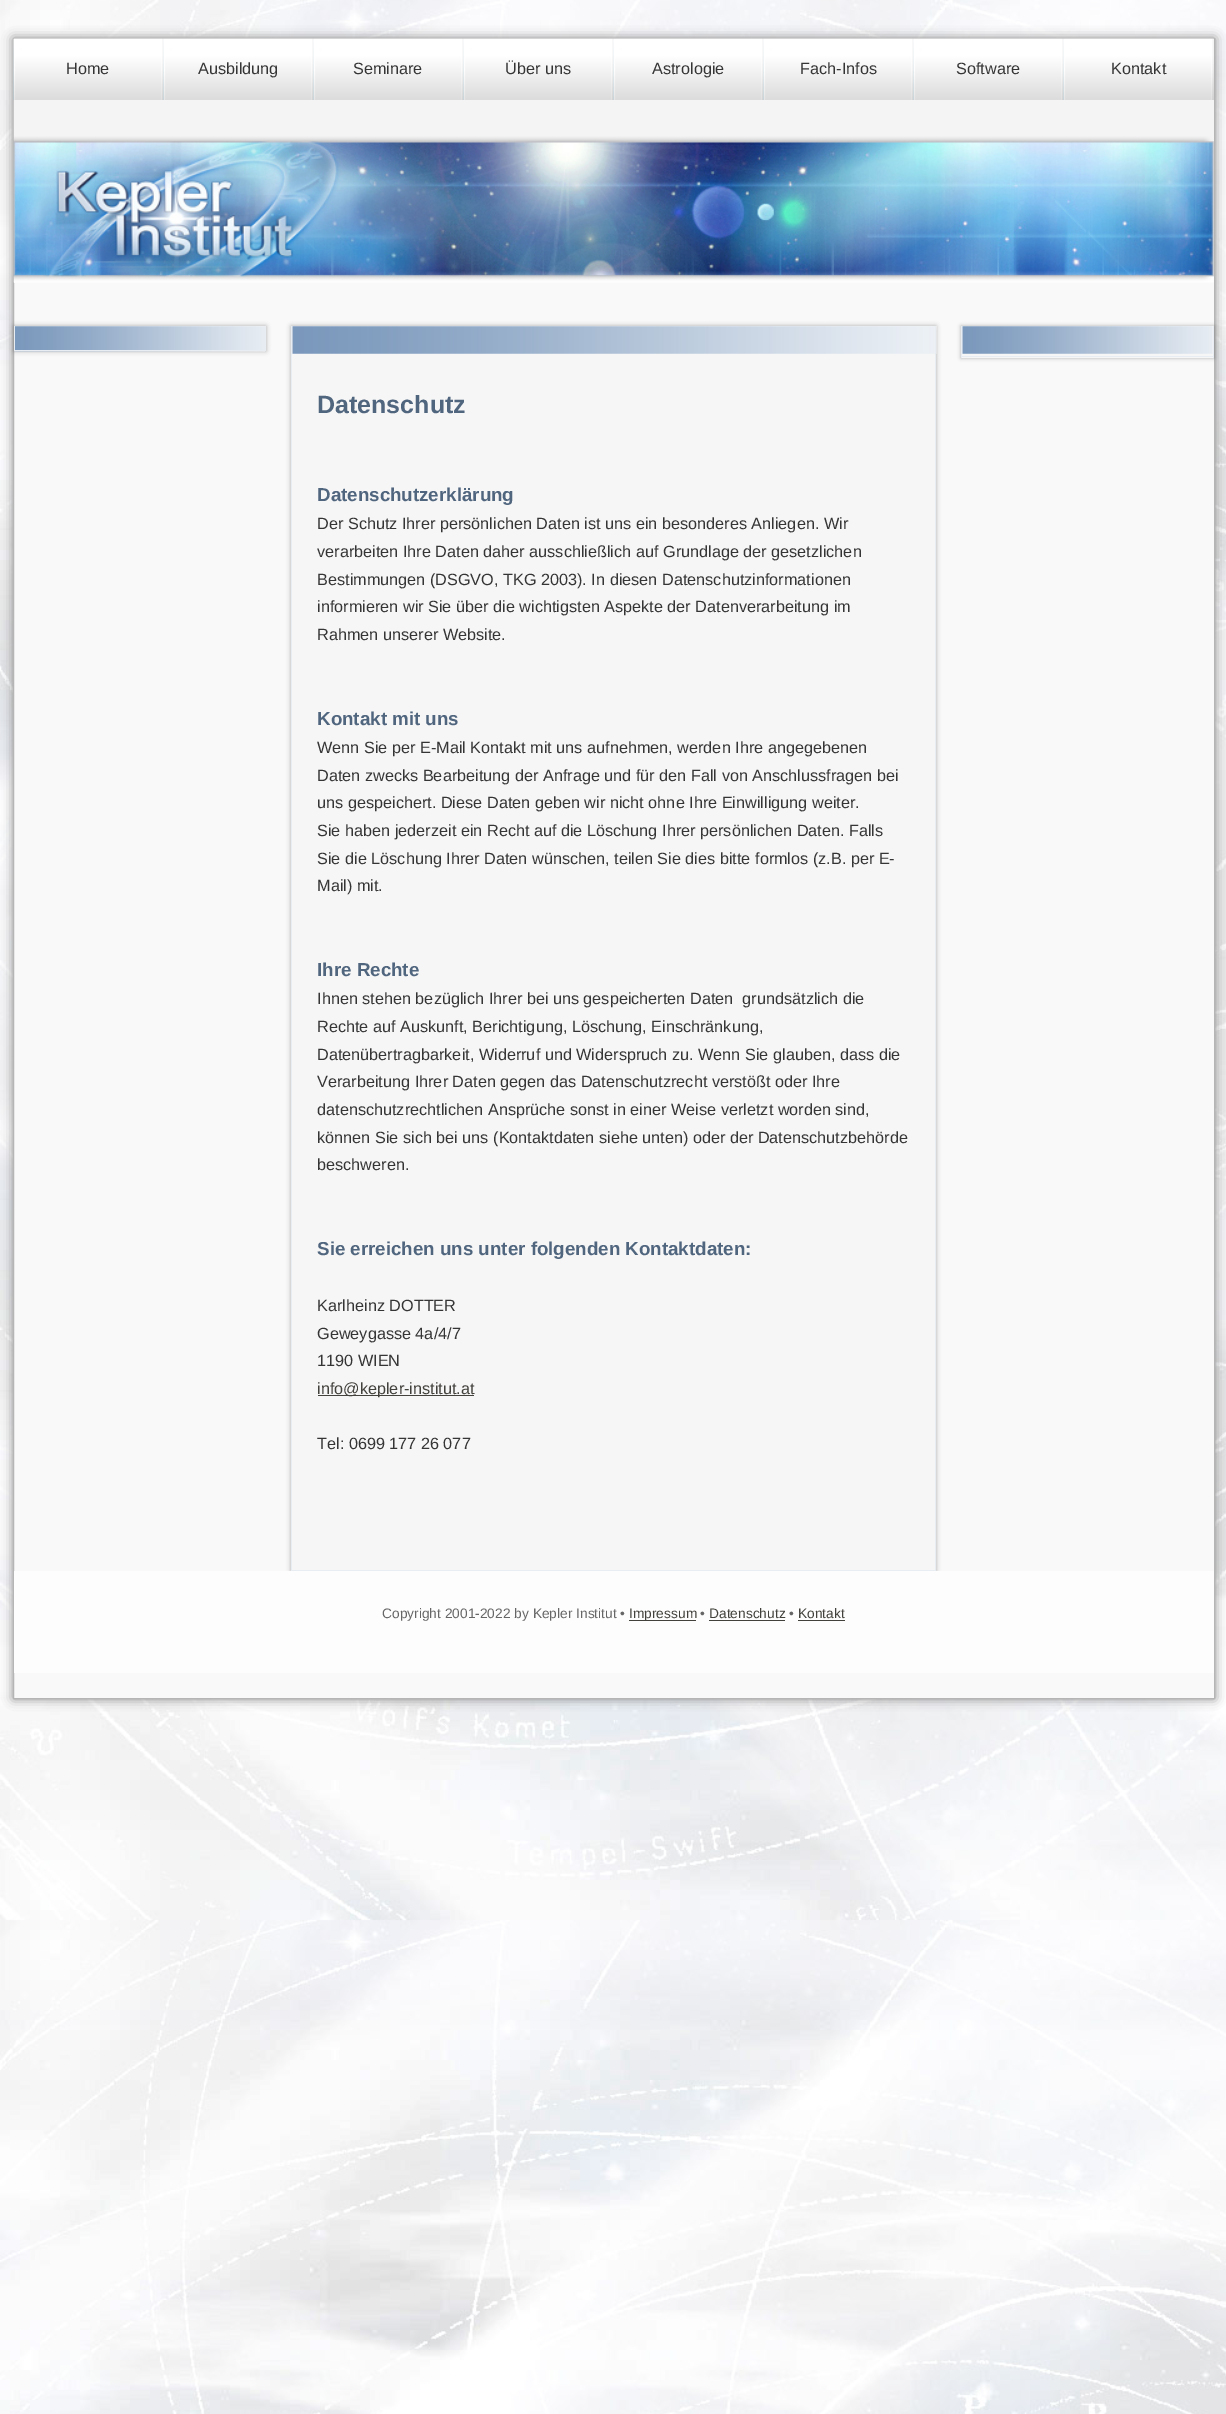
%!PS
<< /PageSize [1226 2414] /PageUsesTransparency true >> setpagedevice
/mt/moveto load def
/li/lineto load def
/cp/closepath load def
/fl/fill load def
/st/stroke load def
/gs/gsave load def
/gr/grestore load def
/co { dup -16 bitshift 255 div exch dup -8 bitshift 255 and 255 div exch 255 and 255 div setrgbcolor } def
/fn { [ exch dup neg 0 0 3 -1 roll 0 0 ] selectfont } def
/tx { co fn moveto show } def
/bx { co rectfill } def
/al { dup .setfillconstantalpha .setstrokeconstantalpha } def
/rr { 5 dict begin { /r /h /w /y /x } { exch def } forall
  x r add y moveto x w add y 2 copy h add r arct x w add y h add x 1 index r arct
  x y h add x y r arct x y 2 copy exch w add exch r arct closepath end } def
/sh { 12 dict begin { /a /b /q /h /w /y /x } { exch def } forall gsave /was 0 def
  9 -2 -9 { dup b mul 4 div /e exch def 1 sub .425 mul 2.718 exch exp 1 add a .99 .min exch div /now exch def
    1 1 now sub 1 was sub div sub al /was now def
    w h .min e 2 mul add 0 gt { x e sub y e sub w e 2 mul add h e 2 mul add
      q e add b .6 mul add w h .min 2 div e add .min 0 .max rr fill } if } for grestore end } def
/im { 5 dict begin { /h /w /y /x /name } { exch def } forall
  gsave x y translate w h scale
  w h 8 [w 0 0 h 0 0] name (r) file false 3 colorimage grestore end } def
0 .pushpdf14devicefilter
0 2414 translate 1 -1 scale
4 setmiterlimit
0 0 1226 2414 16#FFFFFF bx
(media/1.raw) 0 0 1226 2414 im
16#888888 co
13 38 1202 1661 0 5.5 1 sh
16#F9F9F9 co
13.5 38.5 mt 1214.5 38.5 li 1214.5 1698.5 li 13.5 1698.5 li cp gs fl gr
16#B5B5B5 co
st
(media/2.raw) 13 38 151 62 im
(media/3.raw) 13 38 151 62 im
(media/4.raw) 163 38 151 62 im
(media/5.raw) 163 38 151 62 im
(media/4.raw) 313 38 151 62 im
(media/6.raw) 313 38 151 62 im
(media/4.raw) 463 38 151 62 im
(media/5.raw) 463 38 151 62 im
(media/4.raw) 613 38 151 62 im
(media/5.raw) 613 38 151 62 im
(media/4.raw) 763 38 151 62 im
(media/6.raw) 763 38 151 62 im
(media/4.raw) 913 38 151 62 im
(media/5.raw) 913 38 151 62 im
(media/4.raw) 1063 38 151 62 im
(media/5.raw) 1063 38 151 62 im
(media/7.raw) 13 100 1201 183 im
16#000000 co
14 326 252 25 0 2.5 .3 sh
(media/8.raw) 15 326 250 26 im
265 326 1 25 16#E8ECF3 bx
14 350 252 1 16#E8ECF3 bx
14 326 1 25 16#E8ECF3 bx
16#000000 co
961 326 253 32 0 2 .3 sh
962 326 251 32 16#F6F6F6 bx
(media/9.raw) 962 326 251 28 im
1213 326 1 32 16#E8ECF3 bx
961 356 253 1 16#E8ECF3 bx
961 326 1 32 16#E8ECF3 bx
16#000000 co
291 326 645 1245 0 2.5 .3 sh
292 326 643 1244 16#F6F6F6 bx
(media/10.raw) 292 326 645 28 im
935 326 1 1245 16#E8ECF3 bx
291 1570 645 1 16#E8ECF3 bx
291 326 1 1245 16#E8ECF3 bx
318 1395 156 1 16#42413C bx
14 1571 1200 102 16#FDFDFD bx
629 1620 67 1 16#42413C bx
709 1620 76 1 16#42413C bx
798 1620 47 1 16#42413C bx
(Home) 66 74 /LiberationSans-Regular 16.25 16#353535 tx
(Ausbildung) 198 74 /LiberationSans-Regular 16.25 16#353535 tx
(Seminare) 353 74 /LiberationSans-Regular 16.25 16#353535 tx
(Über uns) 505 74 /LiberationSans-Regular 16.25 16#353535 tx
(Astrologie) 652 74 /LiberationSans-Regular 16.25 16#353535 tx
(Fach-Infos) 800 74 /LiberationSans-Regular 16.25 16#353535 tx
(Software) 956 74 /LiberationSans-Regular 16.25 16#353535 tx
(Kontakt) 1111 74 /LiberationSans-Regular 16.25 16#353535 tx
(Datenschutz) 317 413 /LiberationSans-Bold 25 16#50657E tx
(Datenschutzerklärung) 317 501 /LiberationSans-Bold 18.75 16#50657E tx
(Der Schutz Ihrer persönlichen Daten ist uns ein besonderes Anliegen. Wir) 317 529 /LiberationSans-Regular 16.25 16#353535 tx
(verarbeiten Ihre Daten daher ausschließlich auf Grundlage der gesetzlichen) 317 557 /LiberationSans-Regular 16.25 16#353535 tx
(Bestimmungen \(DSGVO, TKG 2003\). In diesen Datenschutzinformationen) 317 585 /LiberationSans-Regular 16.25 16#353535 tx
(informieren wir Sie über die wichtigsten Aspekte der Datenverarbeitung im) 317 612 /LiberationSans-Regular 16.25 16#353535 tx
(Rahmen unserer Website.) 317 640 /LiberationSans-Regular 16.25 16#353535 tx
(Kontakt mit uns) 317 725 /LiberationSans-Bold 18.75 16#50657E tx
(Wenn Sie per E-Mail Kontakt mit uns aufnehmen, werden Ihre angegebenen) 317 753 /LiberationSans-Regular 16.25 16#353535 tx
(Daten zwecks Bearbeitung der Anfrage und für den Fall von Anschlussfragen bei) 317 781 /LiberationSans-Regular 16.25 16#353535 tx
(uns gespeichert. Diese Daten geben wir nicht ohne Ihre Einwilligung weiter.) 317 808 /LiberationSans-Regular 16.25 16#353535 tx
(Sie haben jederzeit ein Recht auf die Löschung Ihrer persönlichen Daten. Falls) 317 836 /LiberationSans-Regular 16.25 16#353535 tx
(Sie die Löschung Ihrer Daten wünschen, teilen Sie dies bitte formlos \(z.B. per E-) 317 864 /LiberationSans-Regular 16.25 16#353535 tx
(Mail\) mit.) 317 891 /LiberationSans-Regular 16.25 16#353535 tx
(Ihre Rechte) 317 976 /LiberationSans-Bold 18.75 16#50657E tx
(Ihnen stehen bezüglich Ihrer bei uns gespeicherten Daten  grundsätzlich die) 317 1004 /LiberationSans-Regular 16.25 16#353535 tx
(Rechte auf Auskunft, Berichtigung, Löschung, Einschränkung,) 317 1032 /LiberationSans-Regular 16.25 16#353535 tx
(Datenübertragbarkeit, Widerruf und Widerspruch zu. Wenn Sie glauben, dass die) 317 1060 /LiberationSans-Regular 16.25 16#353535 tx
(Verarbeitung Ihrer Daten gegen das Datenschutzrecht verstößt oder Ihre) 317 1087 /LiberationSans-Regular 16.25 16#353535 tx
(datenschutzrechtlichen Ansprüche sonst in einer Weise verletzt worden sind,) 317 1115 /LiberationSans-Regular 16.25 16#353535 tx
(können Sie sich bei uns \(Kontaktdaten siehe unten\) oder der Datenschutzbehörde) 317 1143 /LiberationSans-Regular 16.25 16#353535 tx
(beschweren.) 317 1170 /LiberationSans-Regular 16.25 16#353535 tx
(Sie erreichen uns unter folgenden Kontaktdaten:) 317 1255 /LiberationSans-Bold 18.75 16#50657E tx
(Karlheinz DOTTER) 317 1311 /LiberationSans-Regular 16.25 16#353535 tx
(Geweygasse 4a/4/7) 317 1339 /LiberationSans-Regular 16.25 16#353535 tx
(1190 WIEN) 317 1366 /LiberationSans-Regular 16.25 16#353535 tx
(info@kepler-institut.at) 317 1394 /LiberationSans-Regular 16.25 16#42413C tx
(Tel: 0699 177 26 077) 317 1449 /LiberationSans-Regular 16.25 16#353535 tx
(Copyright 2001-2022 by Kepler Institut •) 382 1618 /LiberationSans-Regular 13.75 16#666666 tx
(Impressum) 629 1618 /LiberationSans-Regular 13.75 16#42413C tx
(•) 700 1618 /LiberationSans-Regular 13.75 16#666666 tx
(Datenschutz) 709 1618 /LiberationSans-Regular 13.75 16#42413C tx
(•) 789 1618 /LiberationSans-Regular 13.75 16#666666 tx
(Kontakt) 798 1618 /LiberationSans-Regular 13.75 16#42413C tx
.poppdf14devicefilter showpage
